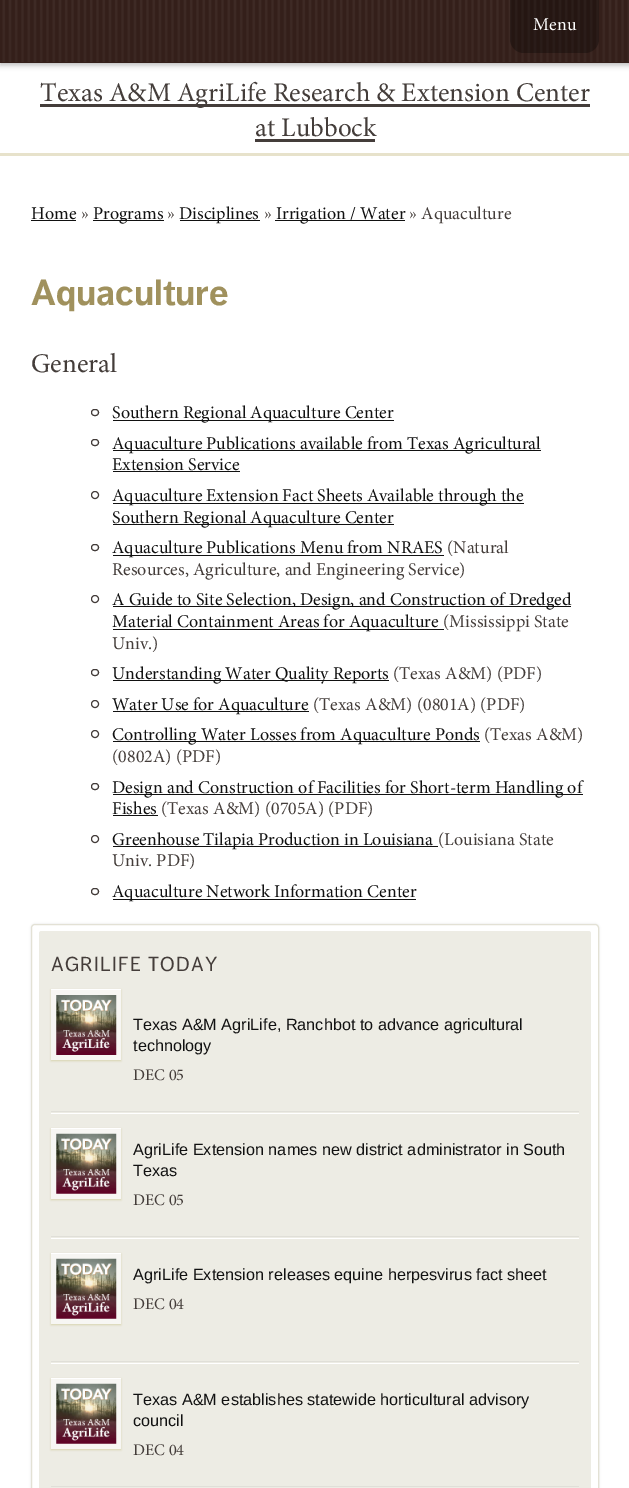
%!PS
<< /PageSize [629 1488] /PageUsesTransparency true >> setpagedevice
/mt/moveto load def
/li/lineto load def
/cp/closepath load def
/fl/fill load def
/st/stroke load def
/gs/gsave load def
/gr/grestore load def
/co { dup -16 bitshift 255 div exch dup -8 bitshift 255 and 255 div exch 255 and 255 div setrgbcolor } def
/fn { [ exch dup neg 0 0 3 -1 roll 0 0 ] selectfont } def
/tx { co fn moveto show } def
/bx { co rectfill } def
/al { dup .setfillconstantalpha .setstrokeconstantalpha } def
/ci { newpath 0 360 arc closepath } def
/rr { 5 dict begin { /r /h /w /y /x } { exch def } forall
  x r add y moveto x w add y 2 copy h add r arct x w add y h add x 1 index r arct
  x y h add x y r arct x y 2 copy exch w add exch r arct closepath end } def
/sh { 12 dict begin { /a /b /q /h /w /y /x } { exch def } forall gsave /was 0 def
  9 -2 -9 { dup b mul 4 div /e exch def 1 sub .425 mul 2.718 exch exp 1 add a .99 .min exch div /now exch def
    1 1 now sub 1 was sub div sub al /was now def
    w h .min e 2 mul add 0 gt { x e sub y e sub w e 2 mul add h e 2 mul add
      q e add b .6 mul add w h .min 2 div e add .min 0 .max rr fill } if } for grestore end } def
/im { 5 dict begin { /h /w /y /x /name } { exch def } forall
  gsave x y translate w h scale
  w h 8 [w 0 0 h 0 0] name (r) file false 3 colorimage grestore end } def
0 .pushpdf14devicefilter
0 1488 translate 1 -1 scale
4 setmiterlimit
0 0 629 1488 16#FFFFFF bx
16#060606 co
0 3 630 62 0 3 .3 sh
0 0 629 63 16#341F1A bx
(media/1.raw) 2 0 627 62 im
0.3 al
16#010101 co
510 -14 89 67 14 rr fl
1 al
40 104 550 3 16#443D3A bx
255 139 120 3 16#443D3A bx
0 153 629 3 16#E7E2CB bx
31 220 45 1 16#111111 bx
93 220 71 1 16#111111 bx
180 220 80 1 16#111111 bx
275 220 130 1 16#111111 bx
16#433C3A co
91.5 409.5 7 6 3 rr st
113 420 281 1 16#111111 bx
16#433C3A co
91.5 439.5 7 6 3 rr st
113 450 428 1 16#111111 bx
113 471 127 1 16#111111 bx
16#433C3A co
95 495 3.5 ci st
113 503 411 1 16#111111 bx
113 524 281 1 16#111111 bx
16#433C3A co
91.5 544.5 7 6 3 rr st
113 555 331 1 16#111111 bx
16#433C3A co
95 599 3.5 ci st
113 606 458 1 16#111111 bx
113 629 331 1 16#111111 bx
16#433C3A co
91.5 669.5 7 6 3 rr st
113 680 276 1 16#111111 bx
16#433C3A co
95 704 3.5 ci st
113 711 196 1 16#111111 bx
16#433C3A co
95 734 3.5 ci st
113 741 367 1 16#111111 bx
16#433C3A co
91.5 783.5 7 6 3 rr st
113 794 470 1 16#111111 bx
113 815 45 1 16#111111 bx
16#433C3A co
95 839 3.5 ci st
113 846 325 1 16#111111 bx
16#433C3A co
91.5 888.5 7 6 3 rr st
113 899 303 1 16#111111 bx
16#646464 co
31 924 568 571 4 1 .2 sh
16#FFFFFF co
31.5 924.5 567 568 3.5 rr gs fl gr
16#E3E1D5 co
st
16#EDECE4 co
39 931 552 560 2.5 rr fl
51 1111 528 1 16#E0DFD8 bx
gs
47 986 mt 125 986 li 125 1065 li 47 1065 li cp 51 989 mt 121 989 li 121 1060 li 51 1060 li cp eoclip newpath
16#D8D3AE co
51 990 70 71 0 1 1 sh
gr
0.55 al
51 990 70 70 16#FFFFFF bx
1 al
51 989 70 1 16#FFFFFF bx
(media/2.raw) 56 995 61 60 im
51 1113 528 1 16#FFFFFF bx
51 1236 528 1 16#E0DFD8 bx
gs
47 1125 mt 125 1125 li 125 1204 li 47 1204 li cp 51 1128 mt 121 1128 li 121 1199 li 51 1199 li cp eoclip newpath
16#D8D3AE co
51 1129 70 71 0 1 1 sh
gr
0.55 al
51 1129 70 70 16#FFFFFF bx
1 al
51 1128 70 1 16#FFFFFF bx
(media/3.raw) 56 1133 61 61 im
51 1238 528 1 16#FFFFFF bx
51 1361 528 1 16#E0DFD8 bx
gs
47 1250 mt 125 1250 li 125 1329 li 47 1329 li cp 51 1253 mt 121 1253 li 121 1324 li 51 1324 li cp eoclip newpath
16#D8D3AE co
51 1254 70 71 0 1 1 sh
gr
0.55 al
51 1254 70 70 16#FFFFFF bx
1 al
51 1253 70 1 16#FFFFFF bx
(media/3.raw) 56 1258 61 61 im
51 1363 528 1 16#FFFFFF bx
51 1486 528 1 16#E0DFD8 bx
gs
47 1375 mt 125 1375 li 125 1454 li 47 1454 li cp 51 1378 mt 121 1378 li 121 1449 li 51 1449 li cp eoclip newpath
16#D8D3AE co
51 1379 70 71 0 1 1 sh
gr
0.55 al
51 1379 70 70 16#FFFFFF bx
1 al
51 1378 70 1 16#FFFFFF bx
(media/3.raw) 56 1383 61 61 im
(Menu) 533 30 /Minion-Regular 18 16#FFFFFF tx
(Texas A&M AgriLife Research & Extension Center) 40 101 /Minion-Regular 27 16#443D3A tx
(at Lubbock) 255 136 /Minion-Regular 27 16#443D3A tx
(Home) 31 219 /Minion-Regular 18 16#111111 tx
(») 81 219 /Minion-Regular 18 16#443D3A tx
(Programs) 93 219 /Minion-Regular 18 16#111111 tx
(») 167 219 /Minion-Regular 18 16#443D3A tx
(Disciplines) 179 219 /Minion-Regular 18 16#111111 tx
(») 264 219 /Minion-Regular 18 16#443D3A tx
(Irrigation / Water) 276 219 /Minion-Regular 18 16#111111 tx
(» Aquaculture) 409 219 /Minion-Regular 18 16#443D3A tx
(Aquaculture) 31 305 /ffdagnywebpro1-Bold 36 16#A0915D tx
(General) 31 372 /Minion-Regular 27 16#443D3A tx
(Southern Regional Aquaculture Center) 112 418 /Minion-Regular 18 16#111111 tx
(Aquaculture Publications available from Texas Agricultural) 112 449 /Minion-Regular 18 16#111111 tx
(Extension Service) 112 470 /Minion-Regular 18 16#111111 tx
(Aquaculture Extension Fact Sheets Available through the) 112 501 /Minion-Regular 18 16#111111 tx
(Southern Regional Aquaculture Center) 112 523 /Minion-Regular 18 16#111111 tx
(Aquaculture Publications Menu from NRAES) 112 553 /Minion-Regular 18 16#111111 tx
(\(Natural) 447 553 /Minion-Regular 18 16#443D3A tx
(Resources, Agriculture, and Engineering Service\)) 112 575 /Minion-Regular 18 16#443D3A tx
(A Guide to Site Selection, Design, and Construction of Dredged) 112 605 /Minion-Regular 18 16#111111 tx
(Material Containment Areas for Aquaculture) 112 627 /Minion-Regular 18 16#111111 tx
(\(Mississippi State) 443 627 /Minion-Regular 18 16#443D3A tx
(Univ.\)) 112 649 /Minion-Regular 18 16#443D3A tx
(Understanding Water Quality Reports) 112 679 /Minion-Regular 18 16#111111 tx
(\(Texas A&M\) \(PDF\)) 393 679 /Minion-Regular 18 16#443D3A tx
(Water Use for Aquaculture) 112 710 /Minion-Regular 18 16#111111 tx
(\(Texas A&M\) \(0801A\) \(PDF\)) 313 710 /Minion-Regular 18 16#443D3A tx
(Controlling Water Losses from Aquaculture Ponds) 112 740 /Minion-Regular 18 16#111111 tx
(\(Texas A&M\)) 484 740 /Minion-Regular 18 16#443D3A tx
(\(0802A\) \(PDF\)) 112 762 /Minion-Regular 18 16#443D3A tx
(Design and Construction of Facilities for Short-term Handling of) 112 793 /Minion-Regular 18 16#111111 tx
(Fishes) 112 814 /Minion-Regular 18 16#111111 tx
(\(Texas A&M\) \(0705A\) \(PDF\)) 161 814 /Minion-Regular 18 16#443D3A tx
(Greenhouse Tilapia Production in Louisiana) 112 845 /Minion-Regular 18 16#111111 tx
(\(Louisiana State) 438 845 /Minion-Regular 18 16#443D3A tx
(Univ. PDF\)) 112 866 /Minion-Regular 18 16#443D3A tx
(Aquaculture Network Information Center) 112 897 /Minion-Regular 18 16#111111 tx
/ffdagnywebpro1-Regular 20 fn
16#443D3A co
51 971 mt 1.25 0 (AGRILIFE TODAY) ashow
(Texas A&M AgriLife, Ranchbot to advance agricultural) 133 1030 /LiberationSans-Regular 16.25 16#111111 tx
(technology) 133 1051 /LiberationSans-Regular 16.25 16#111111 tx
(DEC 05) 133 1080 /Minion-Regular 16.25 16#443D3A tx
(AgriLife Extension names new district administrator in South) 133 1155 /LiberationSans-Regular 16.25 16#111111 tx
(Texas) 133 1176 /LiberationSans-Regular 16.25 16#111111 tx
(DEC 05) 133 1205 /Minion-Regular 16.25 16#443D3A tx
(AgriLife Extension releases equine herpesvirus fact sheet) 133 1280 /LiberationSans-Regular 16.25 16#111111 tx
(DEC 04) 133 1309 /Minion-Regular 16.25 16#443D3A tx
(Texas A&M establishes statewide horticultural advisory) 133 1405 /LiberationSans-Regular 16.25 16#111111 tx
(council) 133 1426 /LiberationSans-Regular 16.25 16#111111 tx
(DEC 04) 133 1455 /Minion-Regular 16.25 16#443D3A tx
.poppdf14devicefilter showpage
